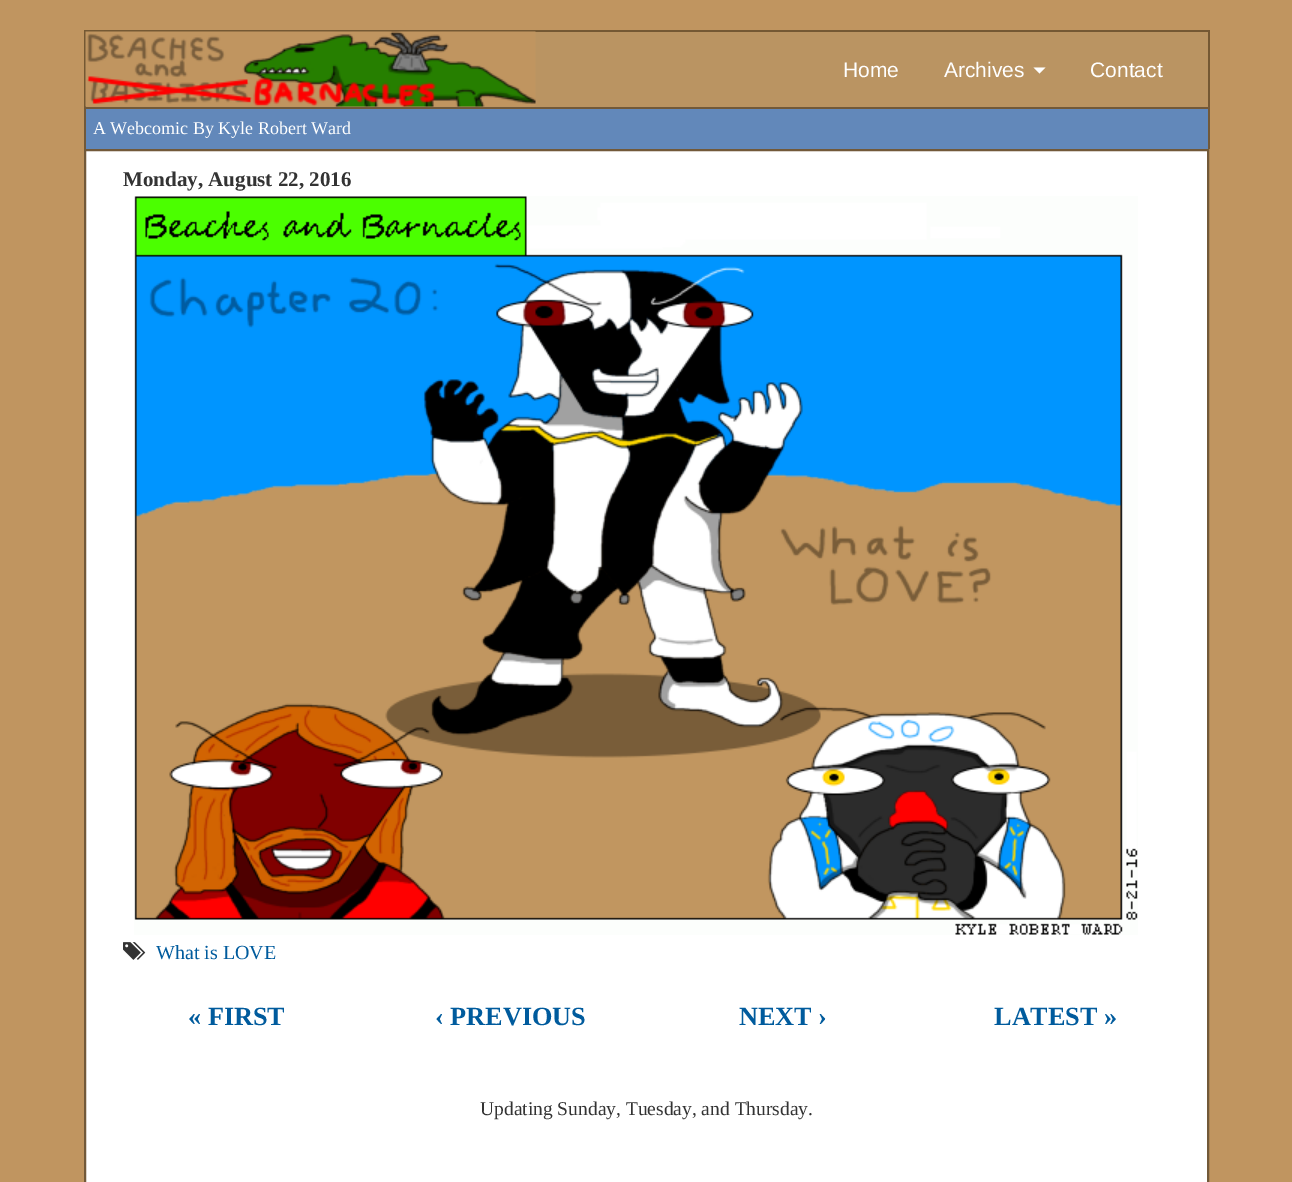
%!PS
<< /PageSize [1292 1182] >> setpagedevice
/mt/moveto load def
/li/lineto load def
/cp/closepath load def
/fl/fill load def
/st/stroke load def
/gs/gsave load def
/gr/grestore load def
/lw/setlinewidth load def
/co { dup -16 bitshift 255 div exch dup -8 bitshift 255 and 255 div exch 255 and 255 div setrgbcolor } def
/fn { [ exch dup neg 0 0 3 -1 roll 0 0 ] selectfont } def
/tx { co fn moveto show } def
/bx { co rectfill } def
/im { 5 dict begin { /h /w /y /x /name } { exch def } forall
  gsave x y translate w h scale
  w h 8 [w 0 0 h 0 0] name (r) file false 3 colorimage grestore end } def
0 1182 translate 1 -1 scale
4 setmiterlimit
0 0 1292 1182 16#C09560 bx
86 32 1122 75 16#BA9462 bx
84 30 1125 2 16#745833 bx
1208 30 2 77 16#745833 bx
84 30 2 77 16#745833 bx
(media/1.raw) 85 31 451 76 im
16#FFFFFF co
1033.5 67.5 mt 1045.5 67.5 li 1039.5 73.5 li cp fl
86 109 1122 40 16#6288BA bx
84 107 1125 2 16#725939 bx
1208 107 2 42 16#725939 bx
84 107 2 42 16#725939 bx
16#FFFFFF co
85 150 mt 1208 150 li 1208 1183 li 85 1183 li cp gs fl gr
16#725939 co
2 lw
st
(media/2.raw) 134 196 1004 739 im
(media/3.raw) 123 942 23 18 im
(Home) 843 77 /LiberationSans-Regular 21 16#FFFFFF tx
(Archives) 944 77 /LiberationSans-Regular 21 16#FFFFFF tx
(Contact) 1090 77 /LiberationSans-Regular 21 16#FFFFFF tx
(A Webcomic By Kyle Robert Ward) 93 134 /LiberationSerif-Regular 18 16#FFFFFF tx
(Monday, August 22, 2016) 123 186 /LiberationSerif-Bold 21 16#333333 tx
(What is LOVE) 156 959 /LiberationSerif-Regular 20 16#005B9D tx
(« FIRST) 188 1025 /LiberationSerif-Bold 26.25 16#005B9D tx
(‹ PREVIOUS) 435 1025 /LiberationSerif-Bold 26.25 16#005B9D tx
(NEXT ›) 739 1025 /LiberationSerif-Bold 26.25 16#005B9D tx
(LATEST ») 994 1025 /LiberationSerif-Bold 26.25 16#005B9D tx
(Updating Sunday, Tuesday, and Thursday.) 480 1115 /LiberationSerif-Regular 19.5 16#333333 tx
showpage
